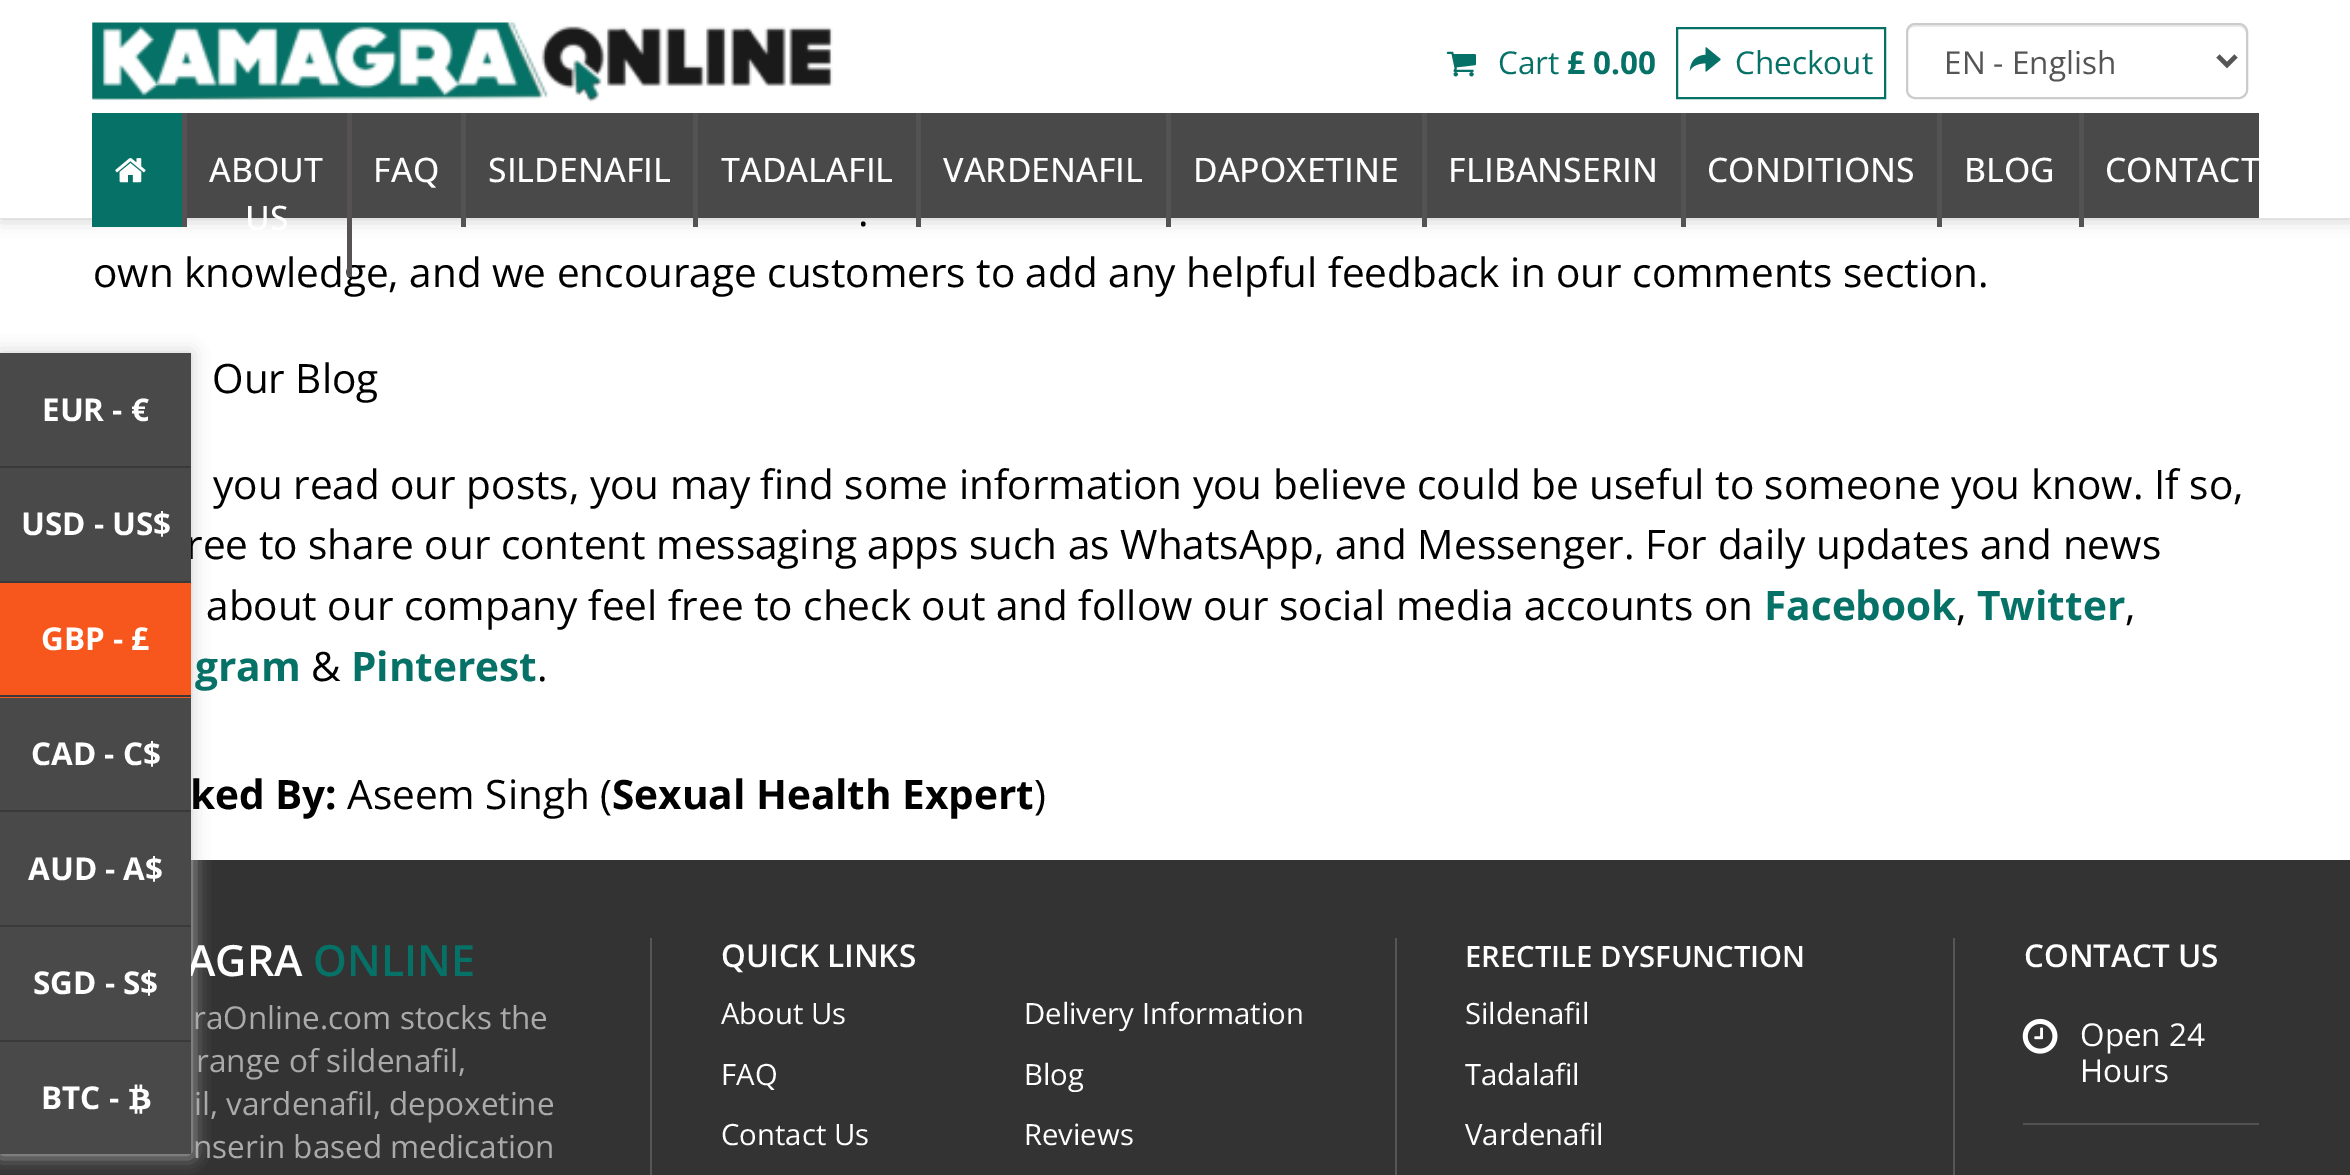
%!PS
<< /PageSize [2350 1175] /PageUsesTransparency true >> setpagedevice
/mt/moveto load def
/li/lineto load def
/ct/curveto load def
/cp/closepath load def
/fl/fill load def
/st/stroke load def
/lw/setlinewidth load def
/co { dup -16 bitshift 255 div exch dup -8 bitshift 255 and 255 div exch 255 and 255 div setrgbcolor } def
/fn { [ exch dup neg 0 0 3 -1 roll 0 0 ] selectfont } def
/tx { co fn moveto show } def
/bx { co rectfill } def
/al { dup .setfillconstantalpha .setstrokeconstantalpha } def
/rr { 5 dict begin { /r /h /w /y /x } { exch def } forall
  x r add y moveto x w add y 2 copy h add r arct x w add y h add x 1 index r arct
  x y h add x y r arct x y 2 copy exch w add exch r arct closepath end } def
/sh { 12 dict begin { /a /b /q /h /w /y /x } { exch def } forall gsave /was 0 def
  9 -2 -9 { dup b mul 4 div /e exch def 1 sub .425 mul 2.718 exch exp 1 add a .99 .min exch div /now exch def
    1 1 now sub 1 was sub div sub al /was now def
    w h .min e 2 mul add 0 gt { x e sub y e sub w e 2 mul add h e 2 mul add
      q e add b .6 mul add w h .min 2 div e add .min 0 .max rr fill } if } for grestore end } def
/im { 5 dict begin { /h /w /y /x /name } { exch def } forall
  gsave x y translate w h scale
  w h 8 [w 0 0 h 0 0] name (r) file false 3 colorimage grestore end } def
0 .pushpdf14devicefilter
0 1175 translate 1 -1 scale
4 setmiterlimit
0 0 2350 1175 16#FFFFFF bx
16#333333 co
0 0 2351 218 0 9 .31 sh
0 0 2350 218 16#FFFFFF bx
(media/1.raw) 92 22 741 80 im
(media/2.raw) 1446 51 30 26 im
16#067166 co
2 lw
1677 28 208 70 rectstroke
(media/3.raw) 1689 47 32 25 im
16#ECECEC co
1915 27 mt 2239 27 li 2242 27 2246 30 2246 34 ct 2246 32 li 2246 28 2243 25 2239 25 ct 1915 25 li 1911 25 1908 28 1908 32 ct 1908 34 li 1908 30 1911 27 1915 27 ct cp fl
16#CCCCCC co
1907 24 340 74 8 rr st
16#555555 co
4.5 lw
2218 56 mt 2227 65 li 2236 56 li st
187 113 2072 105 16#494949 bx
92 113 90 114 16#067166 bx
182 113 5 114 16#545252 bx
(media/4.raw) 115 158 31 25 im
461 113 5 114 16#545252 bx
693 113 5 114 16#545252 bx
916 113 5 114 16#545252 bx
1166 113 5 114 16#545252 bx
1422 113 5 114 16#545252 bx
1681 113 5 114 16#545252 bx
1937 113 5 114 16#545252 bx
2079 113 5 114 16#545252 bx
0 860 2350 315 16#333333 bx
16#CCCCCC co
0 353 191 801 0 9 1 sh
650 938 2 237 16#565656 bx
1395 938 2 237 16#565656 bx
1953 938 2 237 16#565656 bx
2023 1123 236 2 16#525252 bx
(media/6.raw) 2022 1018 36 36 im
(Cart) 1498 74 /OpenSans-Regular 31.5 16#067166 tx
(£ 0.00) 1567 74 /OpenSans-Bold 31.5 16#067166 tx
(Checkout) 1735 74 /OpenSans-Regular 31.5 16#067166 tx
(EN - English) 1944 74 /OpenSans-Regular 31.5 16#555555 tx
(ABOUT) 209 182 /OpenSans-Medium 33.75 16#FFFFFF tx
(US) 245 230 /OpenSans-Medium 33.75 16#FFFFFF tx
(FAQ) 373 182 /OpenSans-Medium 33.75 16#FFFFFF tx
(SILDENAFIL) 488 182 /OpenSans-Medium 33.75 16#FFFFFF tx
(TADALAFIL) 721 182 /OpenSans-Medium 33.75 16#FFFFFF tx
(VARDENAFIL) 943 182 /OpenSans-Medium 33.75 16#FFFFFF tx
(DAPOXETINE) 1193 182 /OpenSans-Medium 33.75 16#FFFFFF tx
(FLIBANSERIN) 1448 182 /OpenSans-Medium 33.75 16#FFFFFF tx
(CONDITIONS) 1707 182 /OpenSans-Medium 33.75 16#FFFFFF tx
(BLOG) 1964 182 /OpenSans-Medium 33.75 16#FFFFFF tx
(CONTACT) 2105 182 /OpenSans-Medium 33.75 16#FFFFFF tx
(.) 858 226 /OpenSans-Regular 40.5 16#000000 tx
(own knowledge, and we encourage customers to add any helpful feedback in our comments section.) 93 287 /OpenSans-Regular 40.5 16#000000 tx
347 113 5 164 16#545252 bx
(Our Blog) 212 393 /OpenSans-Regular 40.5 16#000000 tx
(you read our posts, you may find some information you believe could be useful to someone you know. If so,) 213 499 /OpenSans-Regular 40.5 16#000000 tx
(ree to share our content messaging apps such as WhatsApp, and Messenger. For daily updates and news) 186 559 /OpenSans-Regular 40.5 16#000000 tx
(about our company feel free to check out and follow our social media accounts on) 206 620 /OpenSans-Regular 40.5 16#000000 tx
(Facebook) 1764 620 /OpenSans-Bold 40.5 16#067166 tx
(,) 1956 620 /OpenSans-Regular 40.5 16#000000 tx
(Twitter) 1977 620 /OpenSans-Bold 40.5 16#067166 tx
(,) 2125 620 /OpenSans-Regular 40.5 16#000000 tx
(gram) 195 681 /OpenSans-Bold 40.5 16#067166 tx
(&) 311 681 /OpenSans-Regular 40.5 16#000000 tx
(Pinterest) 351 681 /OpenSans-Bold 40.5 16#067166 tx
(.) 537 681 /OpenSans-Regular 40.5 16#000000 tx
(ked By:) 190 809 /OpenSans-Bold 40.5 16#000000 tx
(Aseem Singh \() 347 809 /OpenSans-Regular 40.5 16#000000 tx
(Sexual Health Expert) 612 809 /OpenSans-Bold 40.5 16#000000 tx
(\)) 1034 809 /OpenSans-Regular 40.5 16#000000 tx
(AGRA) 187 976 /OpenSans-SemiBold 43 16#FFFFFF tx
0 353 191 801 16#494949 bx
(media/5.raw) 129 1084 22 30 im
(BTC -) 41 1109 /OpenSans-Bold 31.5 16#FFFFFF tx
(SGD - S$) 33 994 /OpenSans-Bold 31.5 16#FFFFFF tx
0 1040 191 2 16#3A3A3A bx
(AUD - A$) 28 880 /OpenSans-Bold 31.5 16#FFFFFF tx
0 925 191 2 16#3A3A3A bx
(CAD - C$) 31 765 /OpenSans-Bold 31.5 16#FFFFFF tx
0 810 191 2 16#3A3A3A bx
0 583 191 115 16#F7561D bx
(GBP - £) 41 650 /OpenSans-Bold 31.5 16#FFFFFF tx
0 695 191 2 16#3A3A3A bx
(USD - US$) 21 535 /OpenSans-Bold 31.5 16#FFFFFF tx
0 581 191 2 16#3A3A3A bx
(EUR - €) 42 421 /OpenSans-Bold 31.5 16#FFFFFF tx
0 466 191 2 16#3A3A3A bx
(ONLINE) 313 976 /OpenSans-SemiBold 43 16#067166 tx
(raOnline.com stocks the) 193 1029 /OpenSans-Regular 31.5 16#AAAAAA tx
(range of sildenafil,) 196 1072 /OpenSans-Regular 31.5 16#AAAAAA tx
(il, vardenafil, depoxetine) 194 1115 /OpenSans-Regular 31.5 16#AAAAAA tx
(nserin based medication) 193 1158 /OpenSans-Regular 31.5 16#AAAAAA tx
(QUICK LINKS) 721 967 /OpenSans-SemiBold 31.5 16#FFFFFF tx
(About Us) 721 1024 /OpenSans-Regular 29.25 16#FFFFFF tx
(Delivery Information) 1024 1024 /OpenSans-Regular 29.25 16#FFFFFF tx
(FAQ) 721 1085 /OpenSans-Regular 29.25 16#FFFFFF tx
(Blog) 1024 1085 /OpenSans-Regular 29.25 16#FFFFFF tx
(Contact Us) 721 1145 /OpenSans-Regular 29.25 16#FFFFFF tx
(Reviews) 1024 1145 /OpenSans-Regular 29.25 16#FFFFFF tx
(ERECTILE DYSFUNCTION) 1465 967 /OpenSans-SemiBold 29.25 16#FFFFFF tx
(Sildenafil) 1465 1024 /OpenSans-Regular 29.25 16#FFFFFF tx
(Tadalafil) 1465 1085 /OpenSans-Regular 29.25 16#FFFFFF tx
(Vardenafil) 1465 1145 /OpenSans-Regular 29.25 16#FFFFFF tx
(CONTACT US) 2024 967 /OpenSans-SemiBold 31.5 16#FFFFFF tx
(Open 24) 2080 1046 /OpenSans-Regular 31.5 16#FFFFFF tx
(Hours) 2080 1082 /OpenSans-Regular 31.5 16#FFFFFF tx
.poppdf14devicefilter showpage
